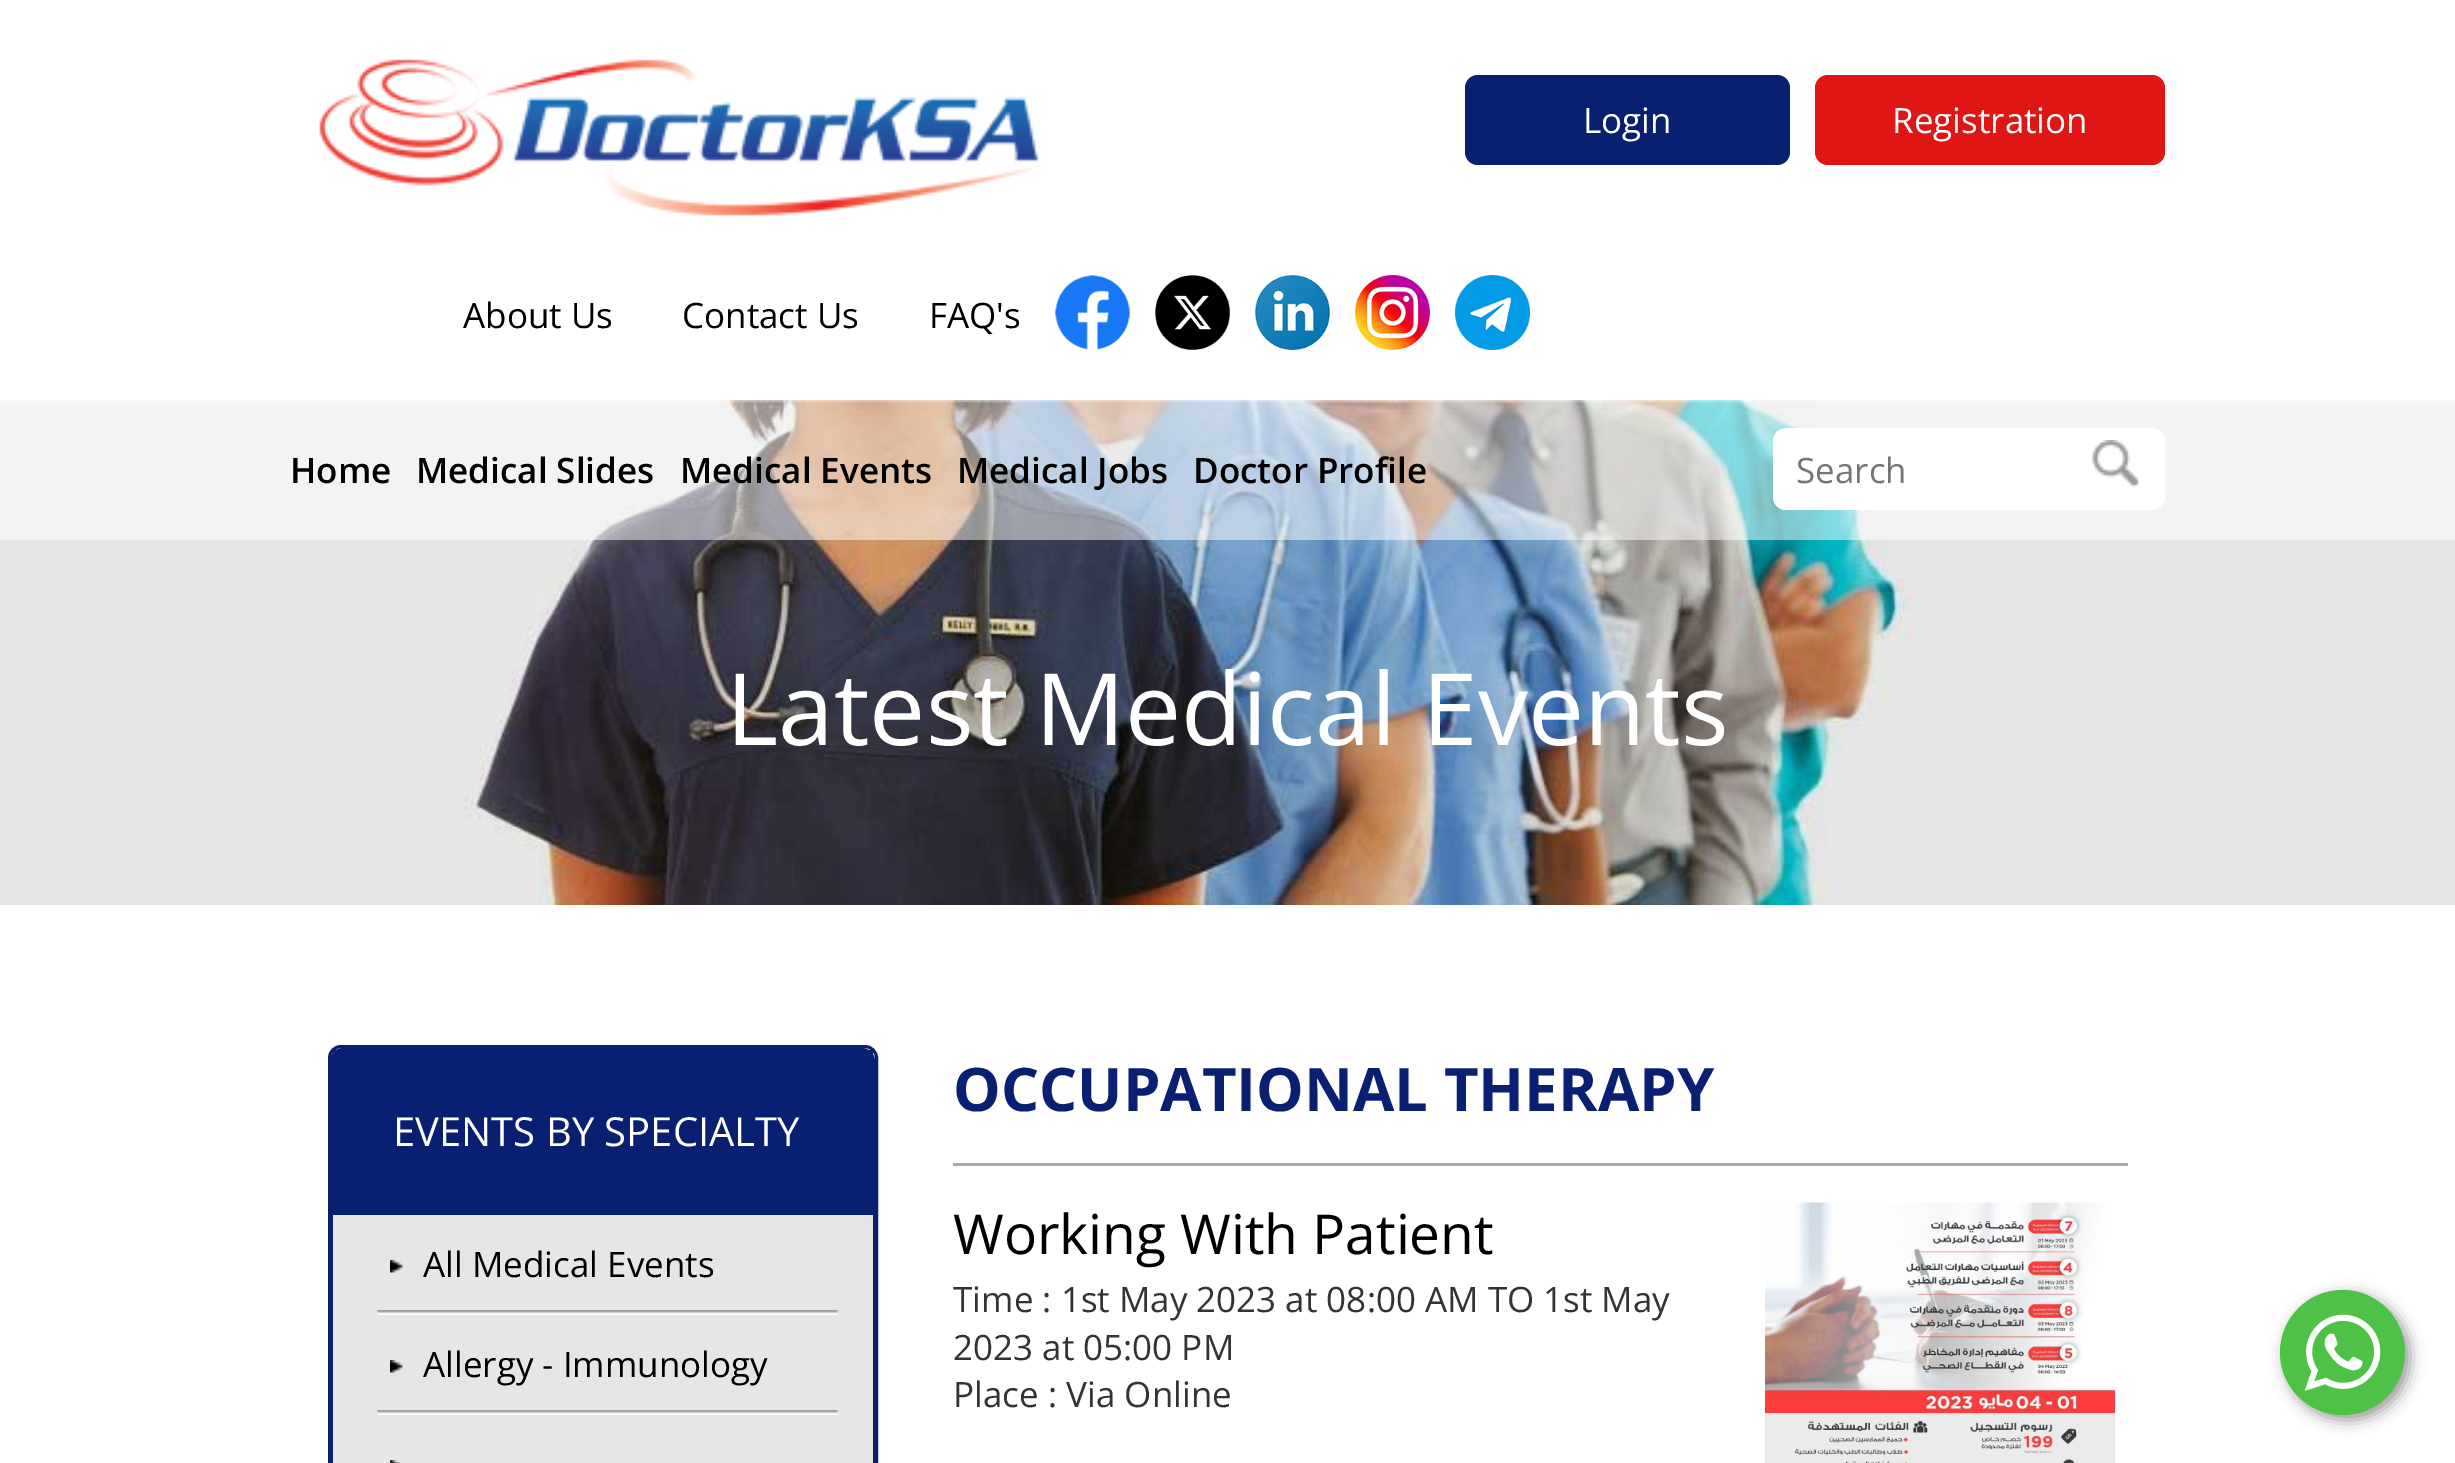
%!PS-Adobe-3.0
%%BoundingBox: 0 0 2455 1463
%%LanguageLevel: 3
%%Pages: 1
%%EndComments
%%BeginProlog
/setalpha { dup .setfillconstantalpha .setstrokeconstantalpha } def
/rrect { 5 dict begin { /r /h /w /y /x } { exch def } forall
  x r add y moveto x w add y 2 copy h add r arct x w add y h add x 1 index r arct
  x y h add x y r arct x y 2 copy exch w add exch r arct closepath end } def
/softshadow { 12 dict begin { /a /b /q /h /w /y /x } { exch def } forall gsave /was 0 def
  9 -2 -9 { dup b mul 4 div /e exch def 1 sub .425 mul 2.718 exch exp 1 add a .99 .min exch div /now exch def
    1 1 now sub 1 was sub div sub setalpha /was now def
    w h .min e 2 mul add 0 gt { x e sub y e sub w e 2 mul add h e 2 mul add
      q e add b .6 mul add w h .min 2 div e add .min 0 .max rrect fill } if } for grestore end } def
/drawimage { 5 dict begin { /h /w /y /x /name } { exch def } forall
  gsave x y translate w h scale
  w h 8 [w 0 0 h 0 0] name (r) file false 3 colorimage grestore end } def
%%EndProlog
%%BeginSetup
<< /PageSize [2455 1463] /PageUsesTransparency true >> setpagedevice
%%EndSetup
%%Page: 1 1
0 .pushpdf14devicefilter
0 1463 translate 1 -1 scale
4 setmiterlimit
1 setgray
0 0 2455 1463 rectfill
(images/1.raw) 319 59 724 157 drawimage
0.035 0.122 0.443 setrgbcolor
1465 75 325 90 13 rrect fill
0.878 0.086 0.082 setrgbcolor
1815 75 350 90 13 rrect fill
(images/2.raw) 1055 275 75 75 drawimage
(images/3.raw) 1155 275 75 75 drawimage
(images/4.raw) 1255 275 75 75 drawimage
(images/5.raw) 1355 275 75 75 drawimage
(images/6.raw) 1455 275 75 75 drawimage
(images/8.raw) 0 400 2455 505 drawimage
0.5 setalpha
1 setgray
0 400 2455 140 rectfill
1 setalpha
1773 428 392 82 13 rrect fill
(images/7.raw) 2091 440 49 48 drawimage
0.035 0.122 0.443 setrgbcolor
3 setlinewidth
329.5 1046.5 547 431 11.5 rrect stroke
331.5 1049.5 542 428 11.5 rrect stroke
333 1050 540 165 rectfill
0.902 setgray
333 1215 540 248 rectfill
(images/9.raw) 377 1310 461 5 drawimage
(images/10.raw) 390 1260 13 13 drawimage
(images/9.raw) 377 1410 461 5 drawimage
(images/10.raw) 390 1360 13 13 drawimage
(images/11.raw) 390 1460 11 3 drawimage
0.667 setgray
953 1163 1175 3 rectfill
(images/12.raw) 1765 1202 350 261 drawimage
0 setgray
2285 1295 125 125 62.5 7.5 0.4 softshadow
0.302 0.761 0.278 setrgbcolor
newpath 2342.5 1352.5 62.5 0 360 arc closepath fill
(images/13.raw) 2304 1314 77 77 drawimage
/OpenSans-Regular [35 0 0 -35 0 0] selectfont
1 setgray
1583 133 moveto (Login) show
1892 133 moveto (Registration) show
0 setgray
463 328 moveto (About Us) show
682 328 moveto (Contact Us) show
929 328 moveto (FAQ's) show
/OpenSans-SemiBold [35 0 0 -35 0 0] selectfont
290 483 moveto (Home) show
416 483 moveto (Medical Slides) show
680 483 moveto (Medical Events) show
957 483 moveto (Medical Jobs) show
1193 483 moveto (Doctor Profile) show
/OpenSans-Regular [35 0 0 -35 0 0] selectfont
0.459 setgray
1796 483 moveto (Search) show
/OpenSans-Regular [100 0 0 -100 0 0] selectfont
1 setgray
726 745 moveto (Latest Medical Events) show
/OpenSans-Regular [40 0 0 -40 0 0] selectfont
393 1146 moveto (EVENTS BY SPECIALTY) show
/OpenSans-Regular [35 0 0 -35 0 0] selectfont
0 setgray
423 1277 moveto (All Medical Events) show
423 1377 moveto (Allergy - Immunology) show
/OpenSans-Bold [60 0 0 -60 0 0] selectfont
0.035 0.122 0.443 setrgbcolor
953 1111 moveto (OCCUPATIONAL THERAPY) show
/OpenSans-Regular [55 0 0 -55 0 0] selectfont
0 setgray
953 1254 moveto (Working With Patient) show
/OpenSans-Regular [35 0 0 -35 0 0] selectfont
0.2 setgray
953 1312 moveto (Time : 1st May 2023 at 08:00 AM TO 1st May) show
953 1360 moveto (2023 at 05:00 PM) show
953 1407 moveto (Place : Via Online) show
.poppdf14devicefilter showpage
%%EOF
